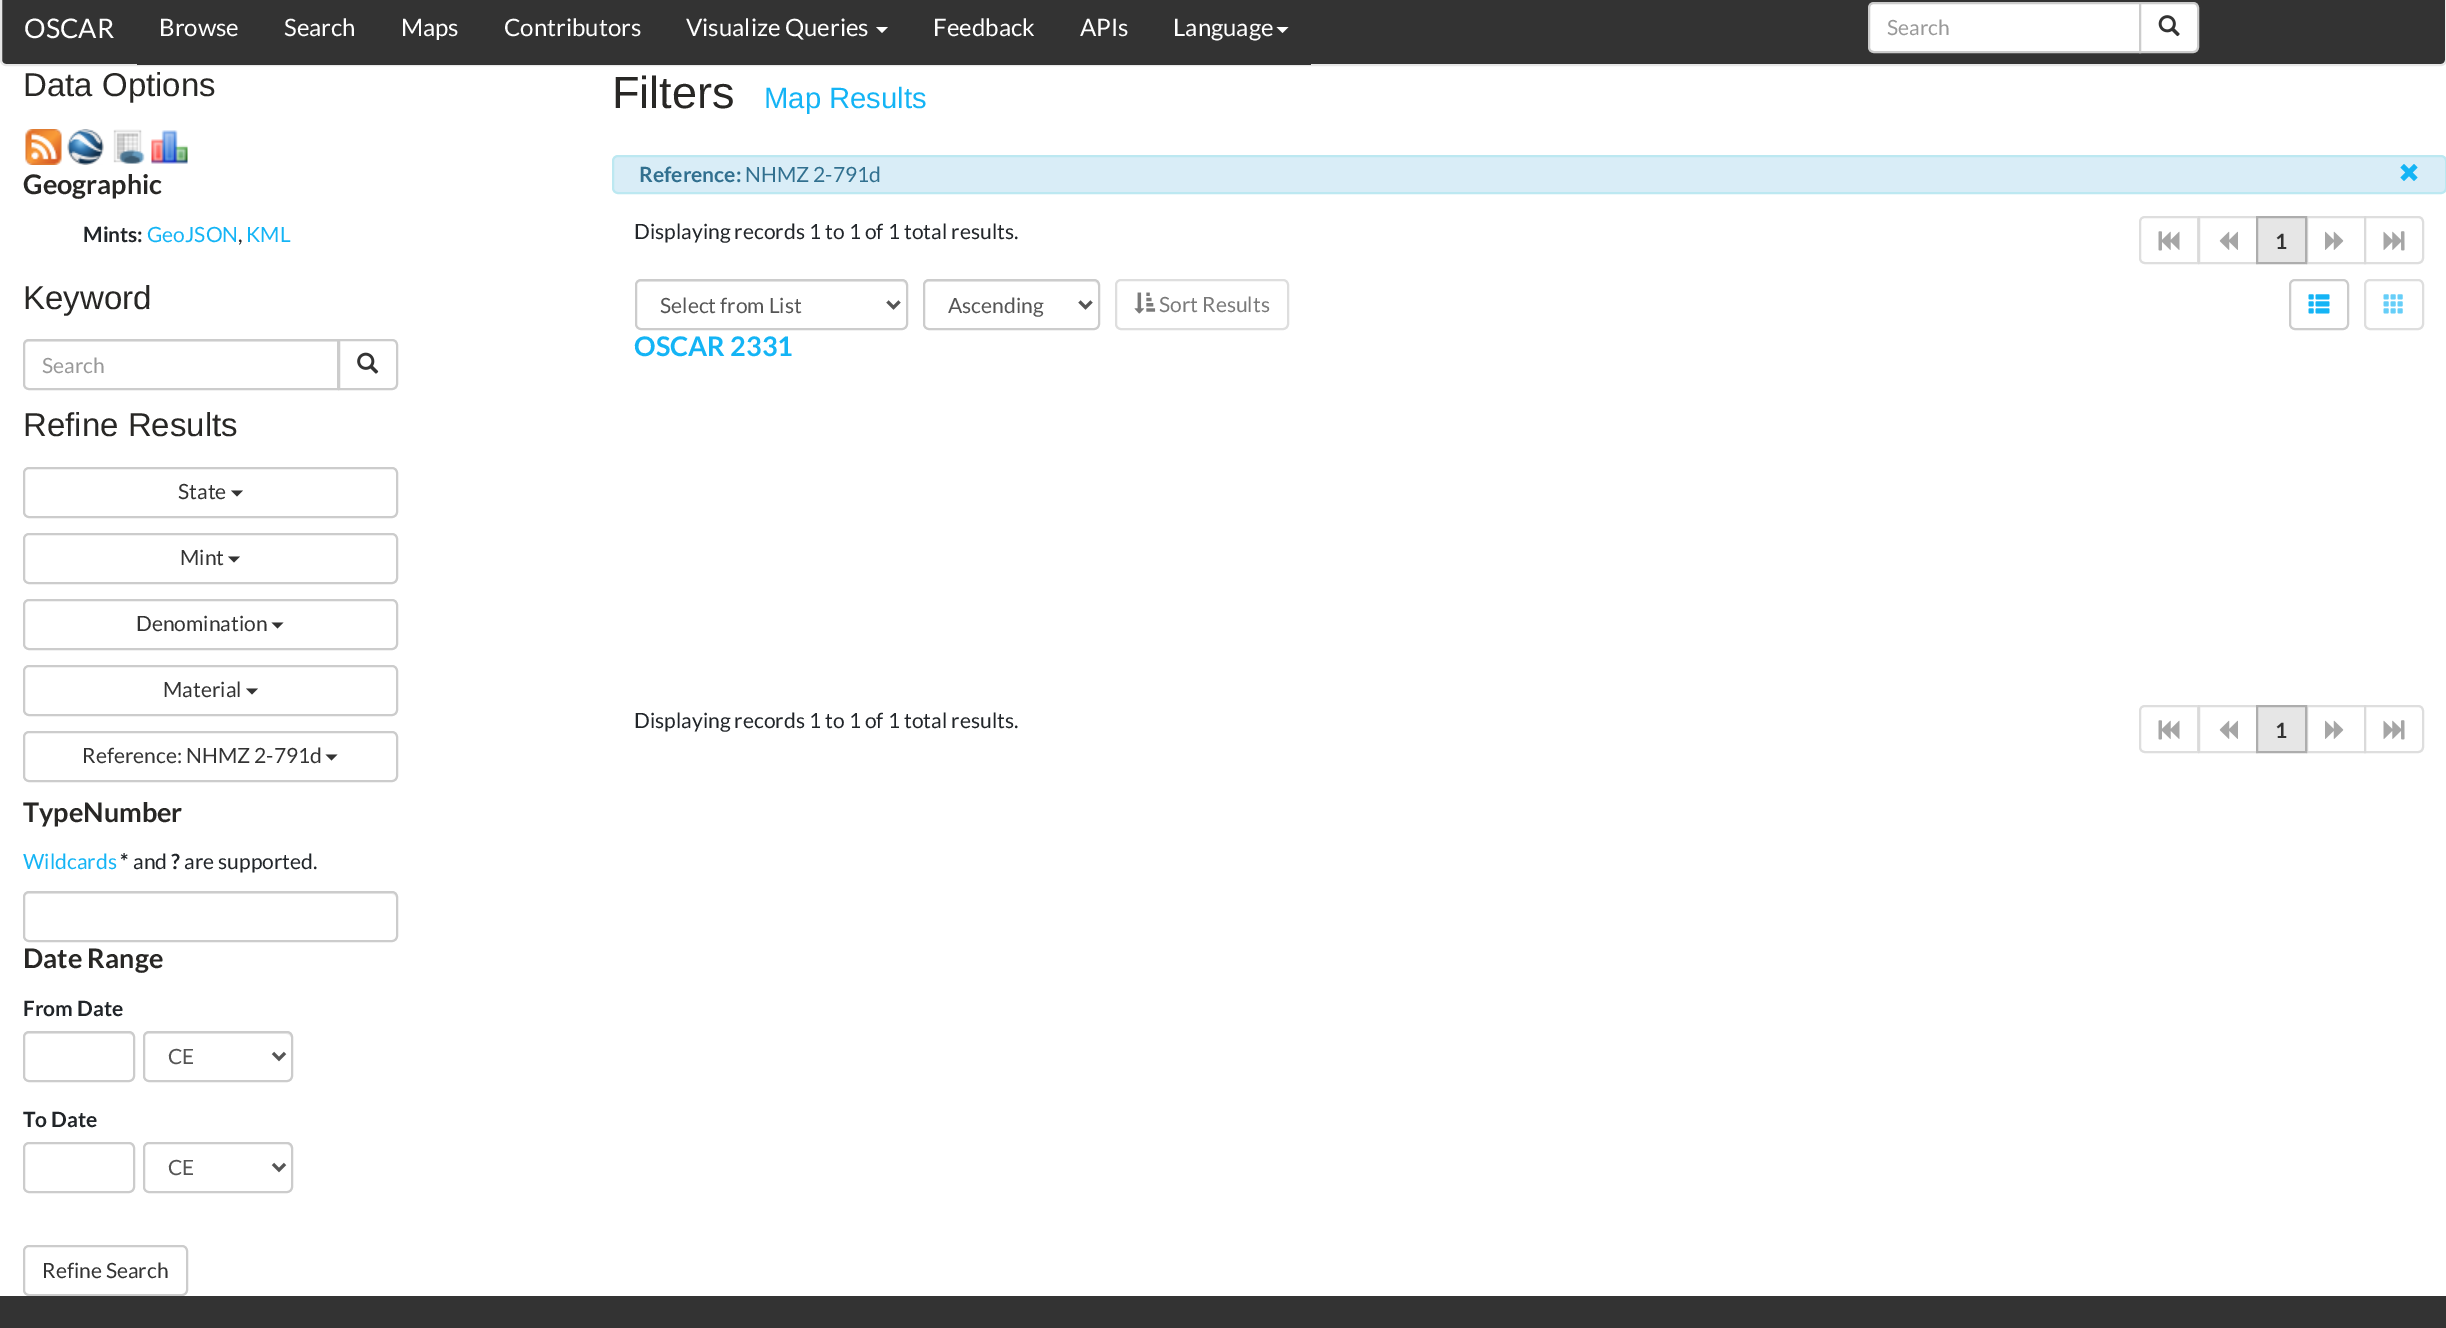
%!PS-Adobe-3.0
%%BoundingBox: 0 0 2446 1328
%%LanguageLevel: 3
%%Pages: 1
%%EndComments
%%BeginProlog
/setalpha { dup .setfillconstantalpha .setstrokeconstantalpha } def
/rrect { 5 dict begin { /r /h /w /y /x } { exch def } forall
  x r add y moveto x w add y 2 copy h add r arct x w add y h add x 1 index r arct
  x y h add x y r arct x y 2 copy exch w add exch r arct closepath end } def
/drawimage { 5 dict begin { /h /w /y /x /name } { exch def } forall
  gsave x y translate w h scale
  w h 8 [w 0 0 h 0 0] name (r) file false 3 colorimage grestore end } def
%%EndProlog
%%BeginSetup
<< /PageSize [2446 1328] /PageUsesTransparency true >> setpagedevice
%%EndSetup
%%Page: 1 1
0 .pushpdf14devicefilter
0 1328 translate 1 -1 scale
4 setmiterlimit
1 setgray
0 0 2446 1328 rectfill
0.2 setgray
1 -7 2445 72 5 rrect gsave fill grestore
0.906 setgray
2 setlinewidth
stroke
0.2 setgray
137 64 1174 1 rectfill
1 setgray
newpath 876 27 moveto 888 27 lineto 882 33 lineto closepath fill
newpath 1276.5 27 moveto 1288.5 27 lineto 1282.5 33 lineto closepath fill
newpath 1874 3 moveto 2140 3 lineto 2140 52 lineto 1874 52 lineto 1871 52 1869 50 1869 47 curveto 1869 8 lineto 1869 5 1871 3 1874 3 curveto closepath gsave fill grestore
0.8 setgray
stroke
1 setgray
newpath 2140 3 moveto 2193 3 lineto 2196 3 2198 5 2198 8 curveto 2198 47 lineto 2198 50 2196 52 2193 52 curveto 2140 52 lineto closepath gsave fill grestore
0.8 setgray
stroke
(images/1.raw) 2158 15 22 22 drawimage
(images/2.raw) 25 129 37 36 drawimage
(images/3.raw) 67 129 37 36 drawimage
(images/4.raw) 113 129 32 35 drawimage
(images/5.raw) 151 130 37 34 drawimage
0.925 setgray
newpath 28 342 moveto 338 342 lineto 338 341 lineto 29 341 lineto 26 341 24 343 24 346 curveto 24 344 26 342 28 342 curveto closepath fill
0.8 setgray
newpath 29 340 moveto 338 340 lineto 338 389 lineto 29 389 lineto 26 389 24 387 24 384 curveto 24 345 lineto 24 342 26 340 29 340 curveto closepath stroke
1 setgray
newpath 339 340 moveto 392 340 lineto 395 340 397 342 397 345 curveto 397 384 lineto 397 387 395 389 392 389 curveto 339 389 lineto closepath gsave fill grestore
0.8 setgray
stroke
(images/6.raw) 357 352 22 22 drawimage
24 468 373 49 5 rrect stroke
0.2 setgray
newpath 231 490.5 moveto 243 490.5 lineto 237 496.5 lineto closepath fill
0.8 setgray
24 534 373 49 5 rrect stroke
0.2 setgray
newpath 228 556.5 moveto 240 556.5 lineto 234 562.5 lineto closepath fill
0.8 setgray
24 600 373 49 5 rrect stroke
0.2 setgray
newpath 271.5 622.5 moveto 283.5 622.5 lineto 277.5 628.5 lineto closepath fill
0.8 setgray
24 666 373 49 5 rrect stroke
0.2 setgray
newpath 246 688.5 moveto 258 688.5 lineto 252 694.5 lineto closepath fill
0.8 setgray
24 732 373 49 5 rrect stroke
0.2 setgray
newpath 325.5 754.5 moveto 337.5 754.5 lineto 331.5 760.5 lineto closepath fill
0.925 setgray
newpath 28 894 moveto 392 894 lineto 394 894 396 896 396 898 curveto 396 895 394 893 391 893 curveto 29 893 lineto 26 893 24 895 24 898 curveto 24 896 26 894 28 894 curveto closepath fill
0.8 setgray
24 892 373 49 5 rrect stroke
0.925 setgray
newpath 28 1034 moveto 129 1034 lineto 131 1034 134 1036 134 1038 curveto 134 1028 117 1032 112 1032 curveto 46 1032 lineto 41 1032 24 1028 24 1038 curveto 24 1036 26 1034 28 1034 curveto closepath fill
0.8 setgray
24 1032 110 49 5 rrect stroke
0.925 setgray
newpath 148 1034 moveto 286 1034 lineto 289 1034 291 1036 291 1038 curveto 291 1037 lineto 291 1034 289 1032 286 1032 curveto 149 1032 lineto 146 1032 144 1034 144 1037 curveto 144 1038 lineto 144 1036 146 1034 148 1034 curveto closepath fill
0.8 setgray
144 1032 148 49 5 rrect stroke
0.333 setgray
3 setlinewidth
newpath 273 1053 moveto 279 1059 lineto 285 1053 lineto stroke
0.925 setgray
newpath 28 1144 moveto 129 1144 lineto 131 1144 134 1147 134 1149 curveto 134 1139 117 1143 112 1143 curveto 46 1143 lineto 41 1143 24 1139 24 1149 curveto 24 1147 26 1144 28 1144 curveto closepath fill
0.8 setgray
2 setlinewidth
24 1143 110 49 5 rrect stroke
0.925 setgray
newpath 148 1144 moveto 286 1144 lineto 289 1144 291 1147 291 1149 curveto 291 1148 lineto 291 1145 289 1143 286 1143 curveto 149 1143 lineto 146 1143 144 1145 144 1148 curveto 144 1149 lineto 144 1147 146 1144 148 1144 curveto closepath fill
0.8 setgray
144 1143 148 49 5 rrect stroke
0.333 setgray
3 setlinewidth
newpath 273 1164 moveto 279 1170 lineto 285 1164 lineto stroke
0.8 setgray
2 setlinewidth
24 1246 163 49 5 rrect stroke
0.851 0.929 0.969 setrgbcolor
613 156 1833 37 5 rrect gsave fill grestore
0.737 0.91 0.945 setrgbcolor
stroke
(images/7.raw) 2400 164 18 17 drawimage
0.871 setgray
newpath 2145 217 moveto 2198 217 lineto 2198 263 lineto 2145 263 lineto 2142 263 2140 261 2140 258 curveto 2140 222 lineto 2140 219 2142 217 2145 217 curveto closepath stroke
(images/8.raw) 2158 231 22 20 drawimage
0.65 setalpha
1 setgray
2198 216 1 48 rectfill
0.8 setgray
2199 217 58 46 rectstroke
1 setalpha
(images/9.raw) 2219 231 19 19 drawimage
0.871 setgray
2307 217 58 46 rectstroke
0.902 setgray
newpath 2257 217 moveto 2306 217 lineto 2306 263 lineto 2257 263 lineto closepath gsave fill grestore
0.678 setgray
stroke
(images/10.raw) 2325 231 19 19 drawimage
0.65 setalpha
1 setgray
newpath 2364 216 moveto 2418 216 lineto 2421.5 216 2424 218.5 2424 222 curveto 2424 258 lineto 2424 261.5 2421.5 264 2418 264 curveto 2364 264 lineto closepath fill
0.8 setgray
newpath 2365 217 moveto 2418 217 lineto 2421 217 2423 219 2423 222 curveto 2423 258 lineto 2423 261 2421 263 2418 263 curveto 2365 263 lineto closepath stroke
1 setalpha
(images/11.raw) 2383 231 22 20 drawimage
0.925 setgray
newpath 640 282 moveto 902 282 lineto 904 282 906 284 906 286 curveto 906 283 904 281 901 281 curveto 641 281 lineto 638 281 636 283 636 286 curveto 636 284 638 282 640 282 curveto closepath fill
0.8 setgray
636 280 271 49 5 rrect stroke
0.333 setgray
3 setlinewidth
newpath 887.5 301.5 moveto 893.5 307.5 lineto 899.5 301.5 lineto stroke
0.925 setgray
newpath 928 282 moveto 1094 282 lineto 1096 282 1098 284 1098 286 curveto 1098 283 1096 281 1093 281 curveto 929 281 lineto 926 281 924 283 924 286 curveto 924 284 926 282 928 282 curveto closepath fill
0.8 setgray
2 setlinewidth
924 280 175 49 5 rrect stroke
0.333 setgray
3 setlinewidth
newpath 1079.5 301.5 moveto 1085.5 307.5 lineto 1091.5 301.5 lineto stroke
0.871 setgray
2 setlinewidth
1116 280 172 49 5 rrect stroke
(images/12.raw) 1134 292 22 22 drawimage
0.8 setgray
2290 280 58 49 5 rrect stroke
(images/13.raw) 2308 294 22 20 drawimage
0.871 setgray
2365 280 58 49 5 rrect stroke
(images/14.raw) 2383 294 20 20 drawimage
newpath 2145 706 moveto 2198 706 lineto 2198 752 lineto 2145 752 lineto 2142 752 2140 750 2140 747 curveto 2140 711 lineto 2140 708 2142 706 2145 706 curveto closepath stroke
(images/8.raw) 2158 720 22 20 drawimage
0.65 setalpha
1 setgray
2198 705 1 48 rectfill
0.8 setgray
2199 706 58 46 rectstroke
1 setalpha
(images/9.raw) 2219 720 19 19 drawimage
0.871 setgray
2307 706 58 46 rectstroke
0.902 setgray
newpath 2257 706 moveto 2306 706 lineto 2306 752 lineto 2257 752 lineto closepath gsave fill grestore
0.678 setgray
stroke
(images/10.raw) 2325 720 19 19 drawimage
0.65 setalpha
1 setgray
newpath 2364 705 moveto 2418 705 lineto 2421.5 705 2424 707.5 2424 711 curveto 2424 747 lineto 2424 750.5 2421.5 753 2418 753 curveto 2364 753 lineto closepath fill
0.8 setgray
newpath 2365 706 moveto 2418 706 lineto 2421 706 2423 708 2423 711 curveto 2423 747 lineto 2423 750 2421 752 2418 752 curveto 2365 752 lineto closepath stroke
1 setalpha
(images/11.raw) 2383 720 22 20 drawimage
0.2 setgray
0 1296 2446 32 rectfill
/Lato-Regular [27 0 0 -27 0 0] selectfont
1 setgray
24 38 moveto (OSCAR) show
/Lato-Regular [24 0 0 -24 0 0] selectfont
159 36 moveto (Browse) show
284 36 moveto (Search) show
401 36 moveto (Maps) show
504 36 moveto (Contributors) show
686 36 moveto (Visualize Queries) show
933 36 moveto (Feedback) show
1080 36 moveto (APIs) show
1173 36 moveto (Language) show
/Lato-Regular [21 0 0 -21 0 0] selectfont
0.6 setgray
1887 35 moveto (Search) show
/LiberationSans-Regular [33 0 0 -33 0 0] selectfont
0.157 0.153 0.145 setrgbcolor
23 96 moveto (Data Options) show
/Lato-Bold [27 0 0 -27 0 0] selectfont
23 194 moveto (Geographic) show
/Lato-Bold [21 0 0 -21 0 0] selectfont
0.129 0.145 0.161 setrgbcolor
83 242 moveto (Mints:) show
/Lato-Regular [21 0 0 -21 0 0] selectfont
0.078 0.706 0.961 setrgbcolor
147 242 moveto (GeoJSON) show
0.129 0.145 0.161 setrgbcolor
238 242 moveto (,) show
0.078 0.706 0.961 setrgbcolor
246 242 moveto (KML) show
/LiberationSans-Regular [33 0 0 -33 0 0] selectfont
0.157 0.153 0.145 setrgbcolor
23 309 moveto (Keyword) show
/Lato-Regular [21 0 0 -21 0 0] selectfont
0.6 setgray
42 373 moveto (Search) show
/LiberationSans-Regular [33 0 0 -33 0 0] selectfont
0.157 0.153 0.145 setrgbcolor
23 436 moveto (Refine Results) show
/Lato-Regular [21 0 0 -21 0 0] selectfont
0.2 setgray
178 499 moveto (State) show
180 565 moveto (Mint) show
136 631 moveto (Denomination) show
163 697 moveto (Material) show
82 763 moveto (Reference: NHMZ 2-791d) show
/Lato-Bold [27 0 0 -27 0 0] selectfont
0.157 0.153 0.145 setrgbcolor
23 822 moveto (TypeNumber) show
/Lato-Regular [21 0 0 -21 0 0] selectfont
0.078 0.706 0.961 setrgbcolor
23 869 moveto (Wildcards) show
/Lato-Bold [21 0 0 -21 0 0] selectfont
0.129 0.145 0.161 setrgbcolor
120 869 moveto (*) show
/Lato-Regular [21 0 0 -21 0 0] selectfont
133 869 moveto (and) show
/Lato-Bold [21 0 0 -21 0 0] selectfont
171 869 moveto (?) show
/Lato-Regular [21 0 0 -21 0 0] selectfont
184 869 moveto (are supported.) show
/Lato-Bold [27 0 0 -27 0 0] selectfont
0.157 0.153 0.145 setrgbcolor
23 968 moveto (Date Range) show
/Lato-Bold [21 0 0 -21 0 0] selectfont
0.129 0.145 0.161 setrgbcolor
23 1016 moveto (From Date) show
/Lato-Regular [21 0 0 -21 0 0] selectfont
0.333 setgray
168 1064 moveto (CE) show
/Lato-Bold [21 0 0 -21 0 0] selectfont
0.129 0.145 0.161 setrgbcolor
23 1127 moveto (To Date) show
/Lato-Regular [21 0 0 -21 0 0] selectfont
0.333 setgray
168 1175 moveto (CE) show
0.2 setgray
42 1278 moveto (Refine Search) show
/LiberationSans-Regular [45 0 0 -45 0 0] selectfont
0.157 0.153 0.145 setrgbcolor
612 108 moveto (Filters) show
/LiberationSans-Regular [29.25 0 0 -29.25 0 0] selectfont
0.078 0.706 0.961 setrgbcolor
764 108 moveto (Map Results) show
/Lato-Bold [21 0 0 -21 0 0] selectfont
0.192 0.439 0.561 setrgbcolor
639 182 moveto (Reference:) show
/Lato-Regular [21 0 0 -21 0 0] selectfont
745 182 moveto (NHMZ 2-791d) show
0.129 0.145 0.161 setrgbcolor
634 239 moveto (Displaying records 1 to 1 of 1 total results.) show
/Lato-Bold [21 0 0 -21 0 0] selectfont
0.2 setgray
2275 249 moveto (1) show
/Lato-Regular [21 0 0 -21 0 0] selectfont
0.333 setgray
660 313 moveto (Select from List) show
948 313 moveto (Ascending) show
0.478 setgray
1159 312 moveto (Sort Results) show
/Lato-Bold [27 0 0 -27 0 0] selectfont
0.078 0.706 0.961 setrgbcolor
634 356 moveto (OSCAR 2331) show
/Lato-Regular [21 0 0 -21 0 0] selectfont
0.129 0.145 0.161 setrgbcolor
634 728 moveto (Displaying records 1 to 1 of 1 total results.) show
/Lato-Bold [21 0 0 -21 0 0] selectfont
0.2 setgray
2275 738 moveto (1) show
.poppdf14devicefilter showpage
%%EOF
